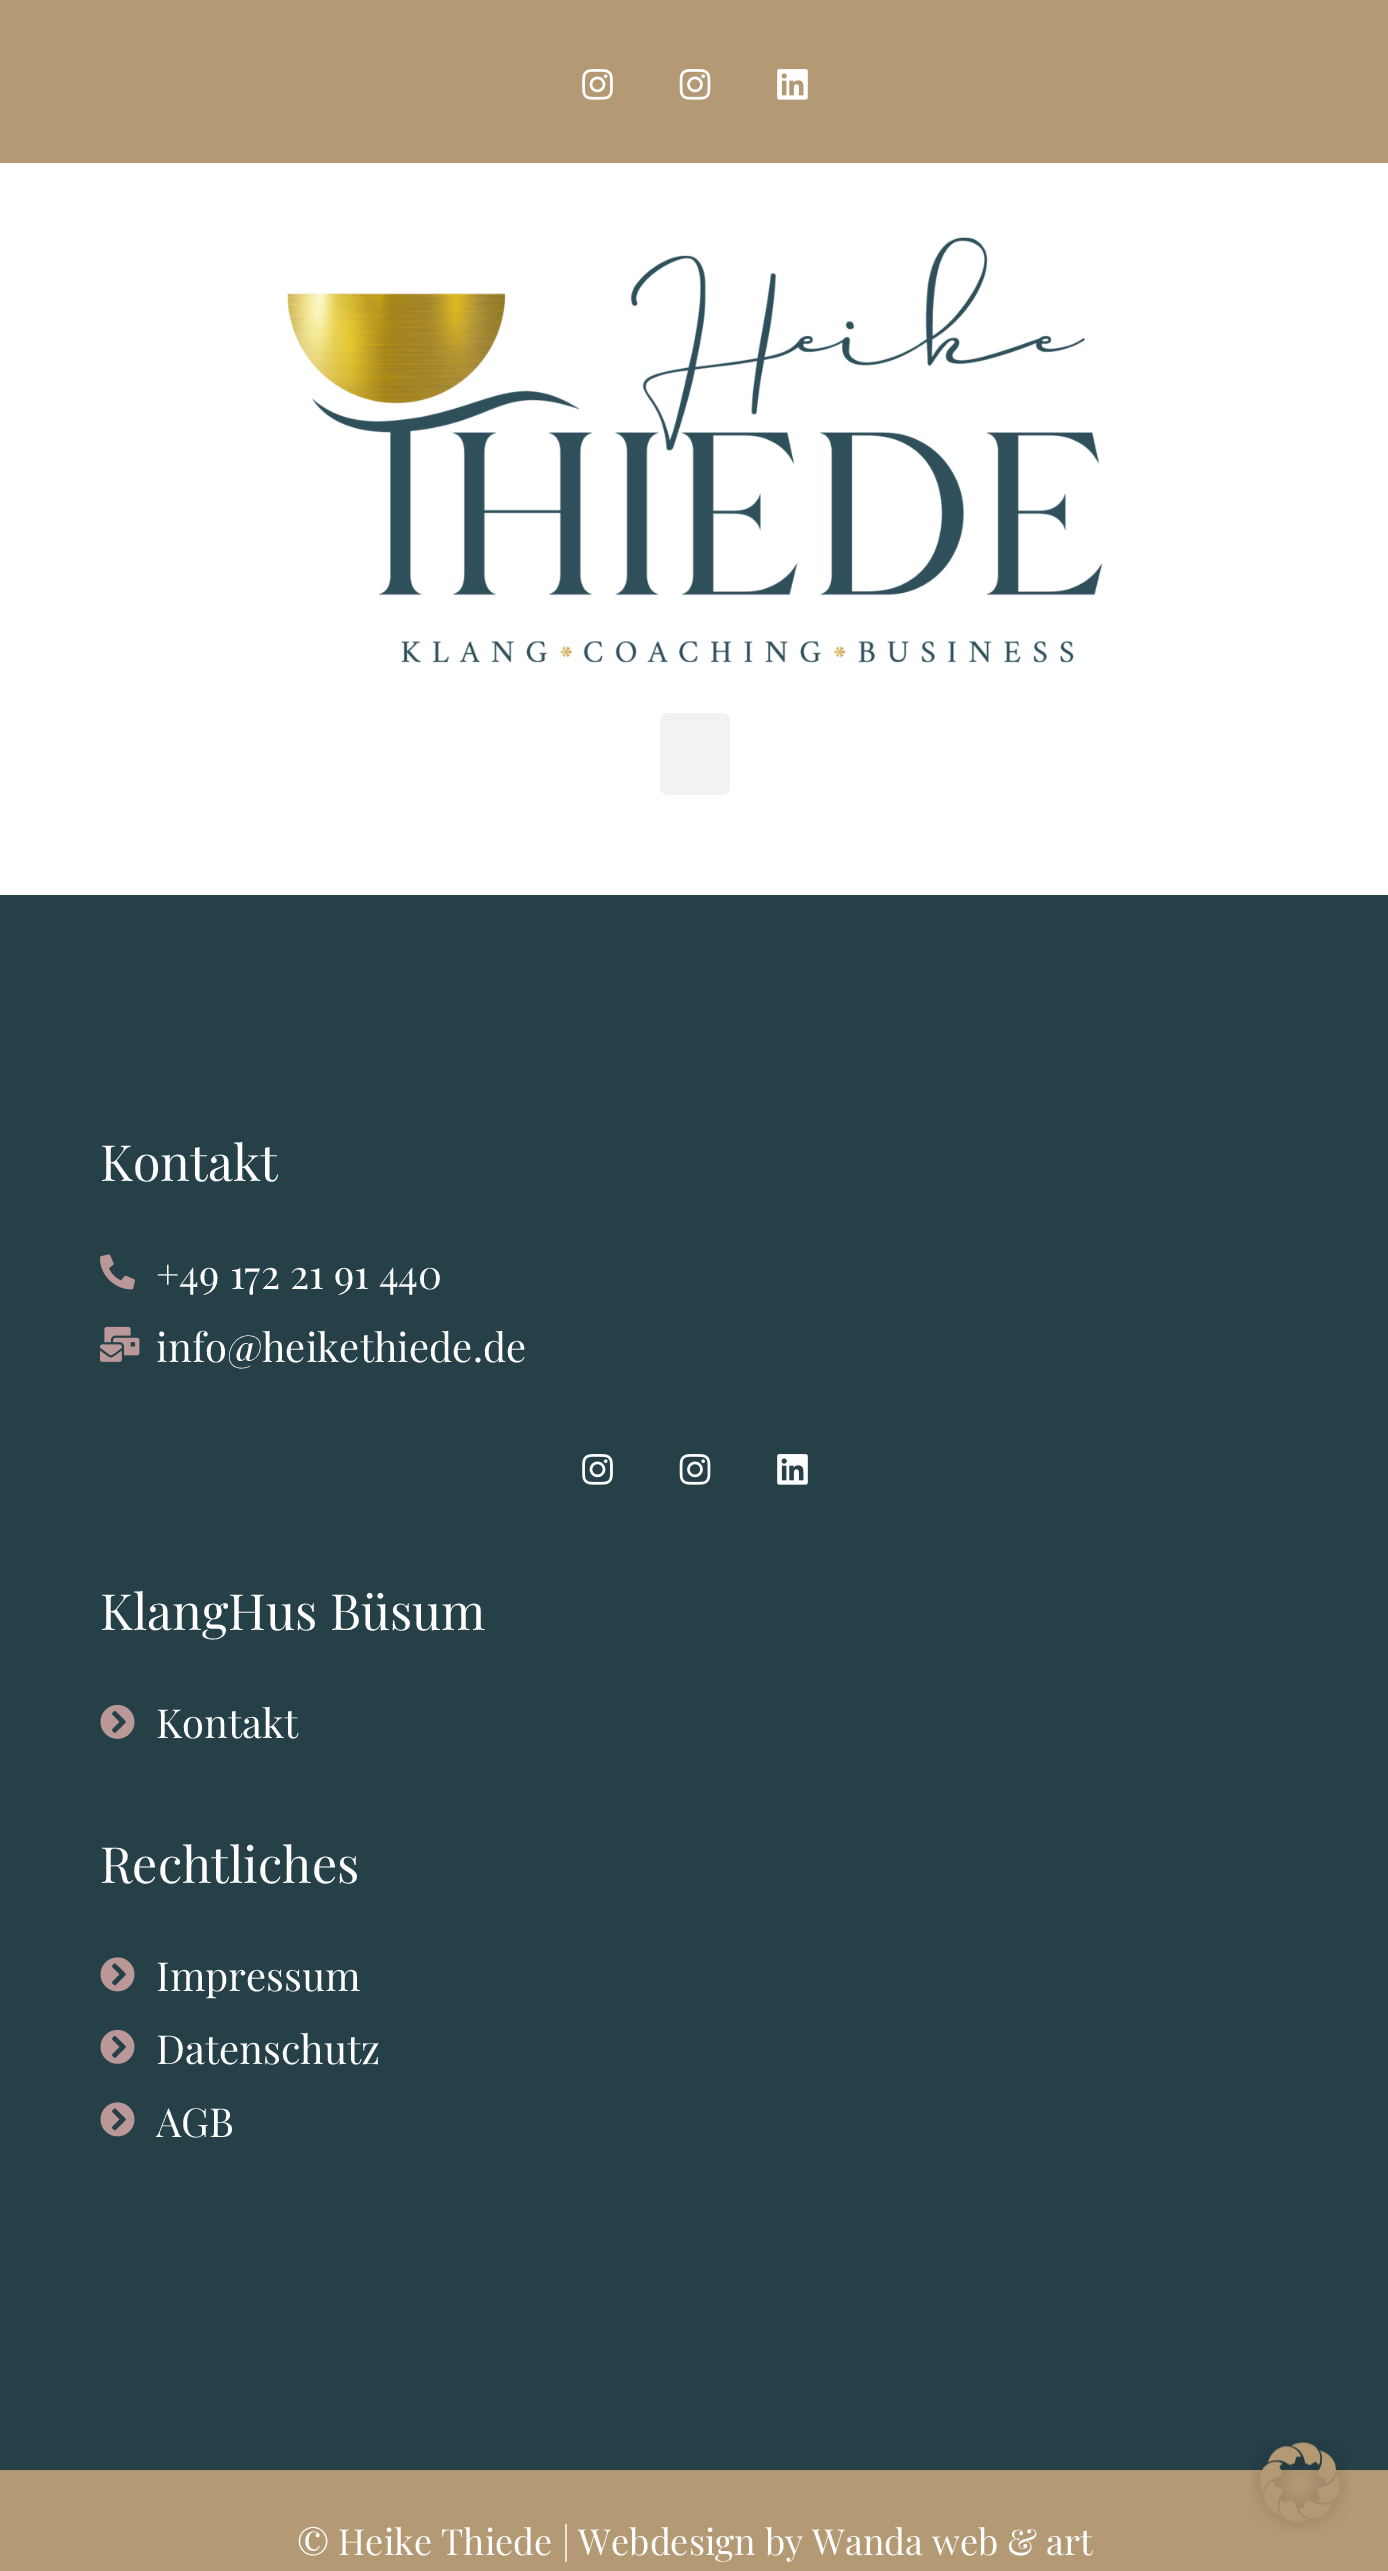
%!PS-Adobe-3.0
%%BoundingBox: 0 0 1388 2571
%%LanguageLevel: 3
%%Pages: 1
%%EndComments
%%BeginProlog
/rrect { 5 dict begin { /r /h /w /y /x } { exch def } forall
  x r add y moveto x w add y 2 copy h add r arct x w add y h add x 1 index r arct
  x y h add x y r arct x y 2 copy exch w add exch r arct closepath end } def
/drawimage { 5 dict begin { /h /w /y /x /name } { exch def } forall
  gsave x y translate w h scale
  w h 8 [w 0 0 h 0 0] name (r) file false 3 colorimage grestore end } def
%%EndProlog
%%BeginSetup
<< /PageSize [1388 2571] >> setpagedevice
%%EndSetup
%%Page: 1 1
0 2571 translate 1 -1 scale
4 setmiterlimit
1 setgray
0 0 1388 2571 rectfill
0.702 0.604 0.459 setrgbcolor
0 0 1388 163 rectfill
(images/1.raw) 582 69 31 31 drawimage
(images/2.raw) 679 69 32 31 drawimage
(images/3.raw) 777 69 31 31 drawimage
(images/4.raw) 287 237 816 426 drawimage
0.949 setgray
660 713 70 82 8 rrect fill
0.149 0.251 0.282 setrgbcolor
0 895 1388 1575 rectfill
(images/5.raw) 100 1254 35 36 drawimage
(images/6.raw) 100 1326 40 36 drawimage
(images/7.raw) 582 1454 31 31 drawimage
(images/8.raw) 679 1454 32 31 drawimage
(images/9.raw) 777 1454 31 31 drawimage
(images/10.raw) 100 1704 35 35 drawimage
(images/11.raw) 100 1957 35 35 drawimage
(images/10.raw) 100 2029 35 35 drawimage
(images/11.raw) 100 2102 35 35 drawimage
0.702 0.604 0.459 setrgbcolor
0 2470 1388 101 rectfill
(images/12.raw) 1250 2440 100 92 drawimage
/PlayfairDisplay-Regular [50 0 0 -50 0 0] selectfont
1 setgray
100 1181 moveto (Kontakt) show
/PlayfairDisplay-Regular [40 0 0 -40 0 0] selectfont
156 1289 moveto (+49 172 21 91 440) show
156 1362 moveto (info@heikethiede.de) show
/PlayfairDisplay-Regular [50 0 0 -50 0 0] selectfont
100 1630 moveto (KlangHus Büsum) show
/PlayfairDisplay-Regular [40 0 0 -40 0 0] selectfont
156 1738 moveto (Kontakt) show
/PlayfairDisplay-Regular [50 0 0 -50 0 0] selectfont
100 1883 moveto (Rechtliches) show
/PlayfairDisplay-Regular [40 0 0 -40 0 0] selectfont
156 1991 moveto (Impressum) show
156 2064 moveto (Datenschutz) show
156 2137 moveto (AGB) show
/PlayfairDisplay-Regular [36 0 0 -36 0 0] selectfont
297 2555 moveto (© Heike Thiede | Webdesign by Wanda web & art) show
showpage
%%EOF
